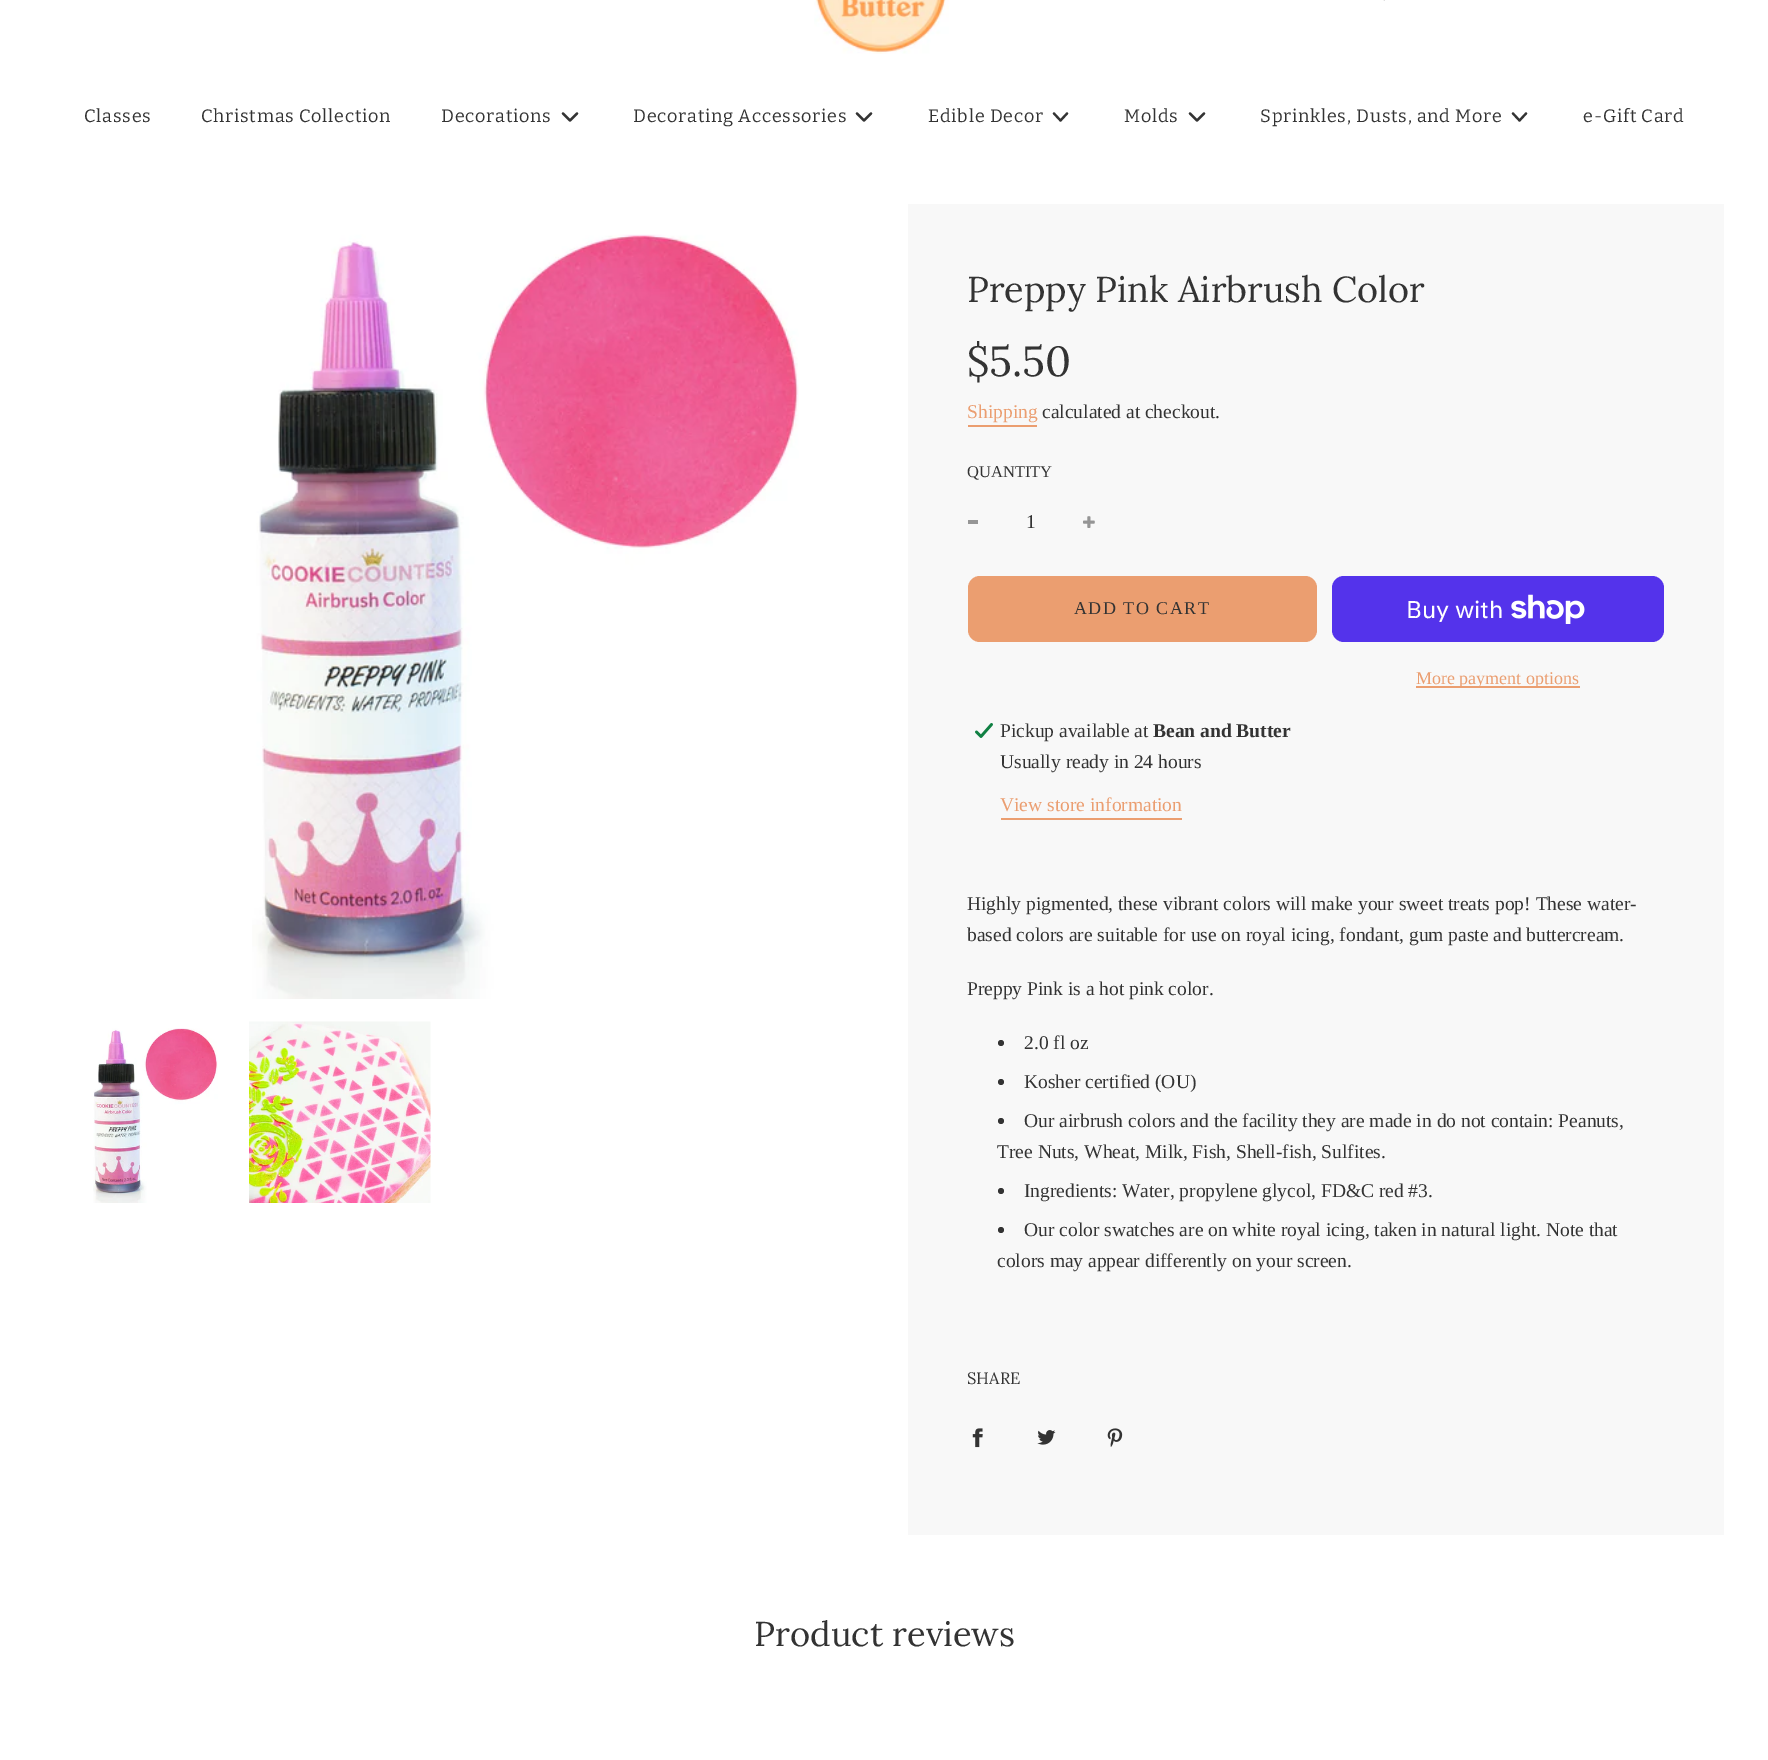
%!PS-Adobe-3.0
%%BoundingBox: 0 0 1768 1760
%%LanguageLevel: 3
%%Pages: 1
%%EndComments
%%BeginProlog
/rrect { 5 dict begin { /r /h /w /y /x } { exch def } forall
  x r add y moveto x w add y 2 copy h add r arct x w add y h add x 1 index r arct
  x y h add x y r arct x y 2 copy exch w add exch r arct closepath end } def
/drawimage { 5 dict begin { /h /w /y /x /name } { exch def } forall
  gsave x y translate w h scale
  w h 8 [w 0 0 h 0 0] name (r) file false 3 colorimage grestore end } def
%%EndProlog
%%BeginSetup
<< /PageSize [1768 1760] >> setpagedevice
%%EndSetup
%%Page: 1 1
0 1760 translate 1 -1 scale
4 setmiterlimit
1 setgray
0 0 1768 1760 rectfill
(images/1.raw) 814 0 135 54 drawimage
(images/2.raw) 1383 0 2 1 drawimage
0.2 setgray
2.2 setlinewidth
1 setlinecap
1 setlinejoin
newpath 563 113.5 moveto 570 120.5 lineto 577 113.5 lineto stroke
newpath 857 113.5 moveto 864 120.5 lineto 871 113.5 lineto stroke
newpath 1054 113.5 moveto 1060.5 120.5 lineto 1067 113.5 lineto stroke
newpath 1190 113.5 moveto 1197 120.5 lineto 1204 113.5 lineto stroke
newpath 1513 113.5 moveto 1519.5 120.5 lineto 1526 113.5 lineto stroke
(images/3.raw) 252 234 547 765 drawimage
(images/4.raw) 93 1028 125 175 drawimage
(images/5.raw) 249 1021 182 182 drawimage
0.973 setgray
908 204 816 1331 rectfill
0.922 0.62 0.439 setrgbcolor
968 425 69 2 rectfill
0.588 setgray
968 520 10 4 rectfill
(images/6.raw) 1083 516 12 12 drawimage
0.922 0.62 0.439 setrgbcolor
968 576 349 66 12 rrect fill
0.329 0.2 0.922 setrgbcolor
1332 576 332 66 12 rrect fill
(images/7.raw) 1511 594 74 30 drawimage
0.922 0.62 0.439 setrgbcolor
1416 686 164 2 rectfill
(images/8.raw) 975 723 18 15 drawimage
1001 818 181 2 rectfill
0.2 setgray
newpath 1001 1043 3 0 360 arc closepath fill
newpath 1001 1082 3 0 360 arc closepath fill
newpath 1001 1121 3 0 360 arc closepath fill
newpath 1001 1191 3 0 360 arc closepath fill
newpath 1001 1230 3 0 360 arc closepath fill
(images/9.raw) 972 1428 11 20 drawimage
(images/10.raw) 1037 1430 19 15 drawimage
(images/11.raw) 1107 1428 16 19 drawimage
/Bitter-Regular [18 0 0 -18 0 0] selectfont
84 122 moveto 0.75 0 (Classes) ashow
201 122 moveto 0.75 0 (Christmas Collection) ashow
441 122 moveto 0.75 0 (Decorations) ashow
633 122 moveto 0.75 0 (Decorating Accessories) ashow
928 122 moveto 0.75 0 (Edible Decor) ashow
1124 122 moveto 0.75 0 (Molds) ashow
1260 122 moveto 0.75 0 (Sprinkles, Dusts, and More) ashow
1583 122 moveto 0.75 0 (e-Gift Card) ashow
/Lora-Regular [36 0 0 -36 0 0] selectfont
967 302 moveto (Preppy Pink Airbrush Color) show
/Lora-Regular [42 0 0 -42 0 0] selectfont
967 376 moveto ($5.50) show
/LiberationSerif-Regular [19.5 0 0 -19.5 0 0] selectfont
0.922 0.62 0.439 setrgbcolor
967 418 moveto (Shipping) show
0.2 setgray
1042 418 moveto (calculated at checkout.) show
/LiberationSerif-Regular [16.5 0 0 -16.5 0 0] selectfont
967 477 moveto (QUANTITY) show
/LiberationSerif-Regular [19.5 0 0 -19.5 0 0] selectfont
1026 528 moveto (1) show
/LiberationSerif-Regular [18 0 0 -18 0 0] selectfont
1074 614 moveto 1.5 0 (ADD TO CART) ashow
/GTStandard-Regular [24 0 0 -24 0 0] selectfont
1 setgray
1406 618 moveto (Buy with) show
/LiberationSerif-Regular [18 0 0 -18 0 0] selectfont
0.922 0.62 0.439 setrgbcolor
1416 684 moveto (More payment options) show
/LiberationSerif-Regular [19.5 0 0 -19.5 0 0] selectfont
0.2 setgray
1000 737 moveto (Pickup available at) show
/LiberationSerif-Bold [19.5 0 0 -19.5 0 0] selectfont
1153 737 moveto (Bean and Butter) show
/LiberationSerif-Regular [19.5 0 0 -19.5 0 0] selectfont
1000 768 moveto (Usually ready in 24 hours) show
0.922 0.62 0.439 setrgbcolor
1000 811 moveto (View store information) show
0.2 setgray
967 910 moveto (Highly pigmented, these vibrant colors will make your sweet treats pop! These water-) show
967 941 moveto (based colors are suitable for use on royal icing, fondant, gum paste and buttercream.) show
967 995 moveto (Preppy Pink is a hot pink color.) show
1024 1049 moveto (2.0 fl oz) show
1024 1088 moveto (Kosher certified \(OU\)) show
1024 1127 moveto (Our airbrush colors and the facility they are made in do not contain: Peanuts,) show
997 1158 moveto (Tree Nuts, Wheat, Milk, Fish, Shell-fish, Sulfites.) show
1024 1197 moveto (Ingredients: Water, propylene glycol, FD&C red #3.) show
1024 1236 moveto (Our color swatches are on white royal icing, taken in natural light. Note that) show
997 1267 moveto (colors may appear differently on your screen.) show
/Lora-Regular [16.5 0 0 -16.5 0 0] selectfont
967 1384 moveto (SHARE) show
/Lora-Regular [34.5 0 0 -34.5 0 0] selectfont
754 1646 moveto (Product reviews) show
showpage
%%EOF
